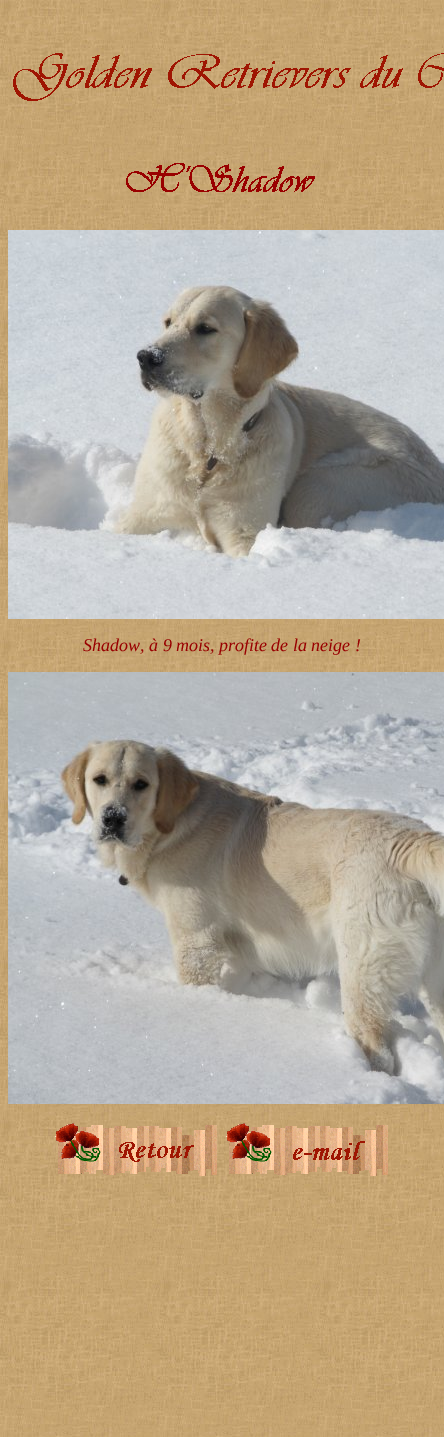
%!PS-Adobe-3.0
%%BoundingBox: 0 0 444 1437
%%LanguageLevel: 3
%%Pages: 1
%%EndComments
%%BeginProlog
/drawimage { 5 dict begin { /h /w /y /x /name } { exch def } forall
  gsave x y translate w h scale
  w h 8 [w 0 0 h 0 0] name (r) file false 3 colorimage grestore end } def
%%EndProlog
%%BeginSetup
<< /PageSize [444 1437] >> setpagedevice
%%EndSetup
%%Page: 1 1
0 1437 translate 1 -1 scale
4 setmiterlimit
1 setgray
0 0 444 1437 rectfill
(images/1.raw) 0 0 444 1437 drawimage
(images/2.raw) 13 53 431 48 drawimage
(images/3.raw) 126 163 189 29 drawimage
(images/4.raw) 8 230 436 389 drawimage
(images/5.raw) 8 672 436 432 drawimage
(images/6.raw) 55 1123 162 53 drawimage
(images/7.raw) 226 1123 162 53 drawimage
/LiberationSerif-Italic [18 0 0 -18 0 0] selectfont
0.6 0 0 setrgbcolor
83 651 moveto (Shadow, à 9 mois, profite de la neige !) show
showpage
%%EOF
